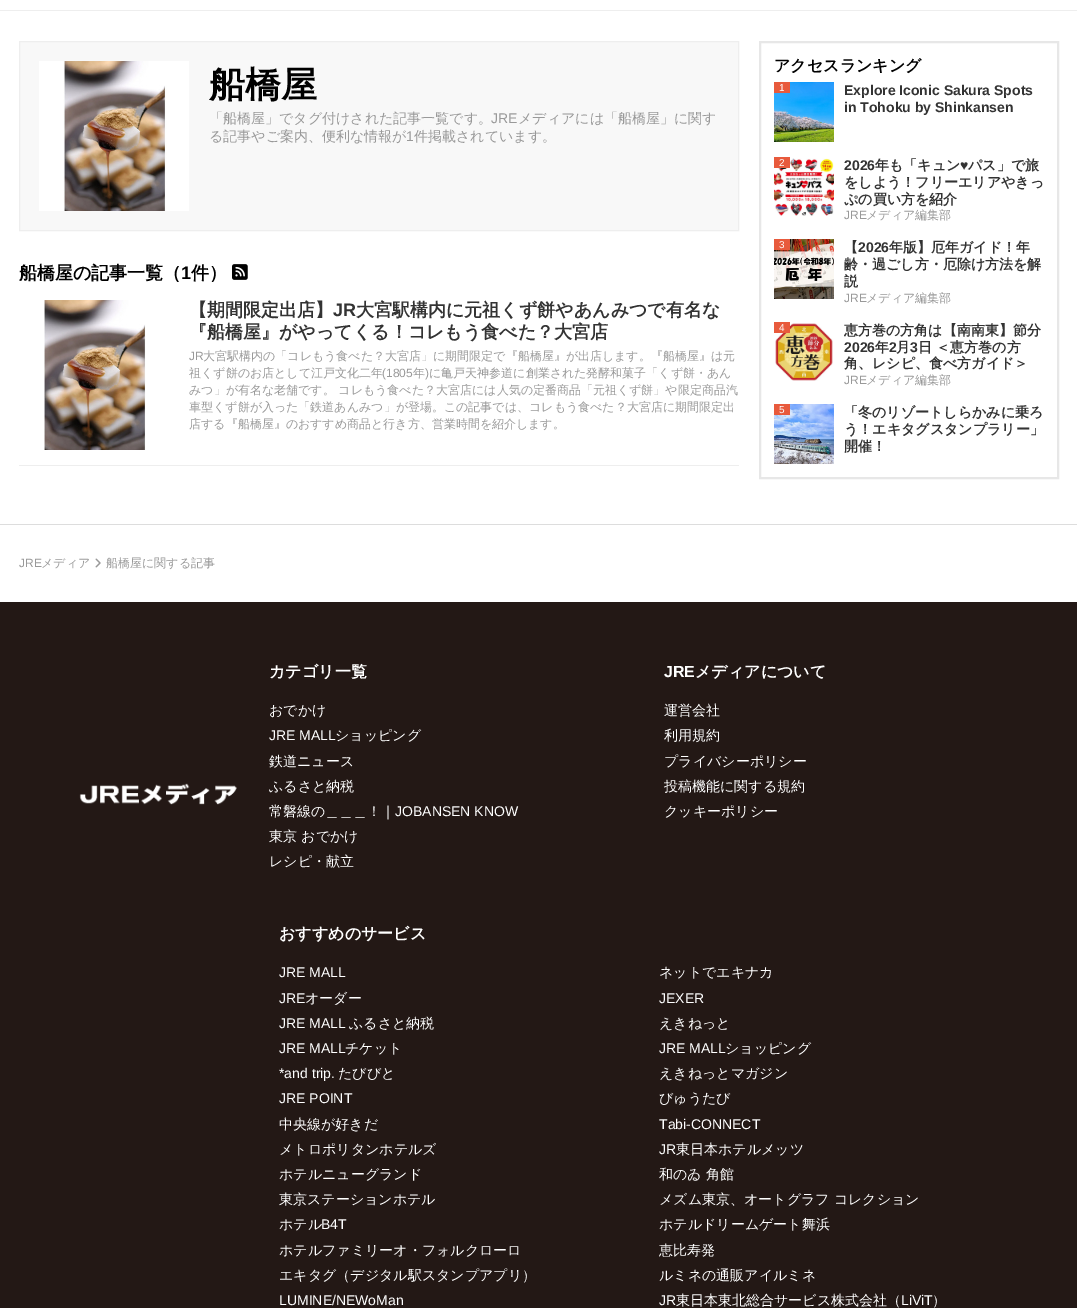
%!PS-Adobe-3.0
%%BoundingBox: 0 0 1077 1308
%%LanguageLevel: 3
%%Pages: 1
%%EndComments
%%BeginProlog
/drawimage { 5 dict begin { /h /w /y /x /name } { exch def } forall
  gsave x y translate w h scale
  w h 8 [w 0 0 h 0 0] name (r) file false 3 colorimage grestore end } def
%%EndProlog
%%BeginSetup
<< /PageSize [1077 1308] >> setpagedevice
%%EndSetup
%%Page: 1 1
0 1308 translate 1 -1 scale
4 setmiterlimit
1 setgray
0 0 1077 1308 rectfill
0.933 setgray
0 10 1077 1 rectfill
0.973 setgray
newpath 19.5 41.5 moveto 738.5 41.5 lineto 738.5 230.5 lineto 19.5 230.5 lineto closepath gsave fill grestore
0.933 setgray
stroke
(images/1.raw) 39 61 150 150 drawimage
(images/2.raw) 232 264 16 16 drawimage
19 465 720 1 rectfill
(images/3.raw) 44 300 102 150 drawimage
0.906 setgray
2 setlinewidth
760 42 298 436 rectstroke
(images/4.raw) 774 82 60 60 drawimage
0.91 0.353 0.235 setrgbcolor
774 82 16 11 rectfill
(images/5.raw) 774 158 60 58 drawimage
774 157 16 11 rectfill
(images/6.raw) 774 239 60 60 drawimage
774 239 16 11 rectfill
(images/7.raw) 775 323 58 58 drawimage
774 322 16 11 rectfill
(images/8.raw) 774 404 60 60 drawimage
774 404 16 11 rectfill
0.867 setgray
0 524 1077 1 rectfill
(images/9.raw) 95 558 6 10 drawimage
0.137 0.094 0.082 setrgbcolor
0 602 1077 706 rectfill
(images/10.raw) 79 783 158 22 drawimage
/WenQuanYiZenHei-Bold [36 0 0 -36 0 0] selectfont
0 setgray
209 97 moveto (船橋屋) show
/WenQuanYiZenHei-Medium [14 0 0 -14 0 0] selectfont
0.6 setgray
209 123 moveto (「船橋屋」でタグ付けされた記事一覧です。) show
/LiberationSans-Regular [14 0 0 -14 0 0] selectfont
491 123 moveto (JRE) show
/WenQuanYiZenHei-Medium [14 0 0 -14 0 0] selectfont
518 123 moveto (メディアには「船橋屋」に関す) show
209 141 moveto (る記事やご案内、便利な情報が) show
/LiberationSans-Regular [14 0 0 -14 0 0] selectfont
406 141 moveto (1) show
/WenQuanYiZenHei-Medium [14 0 0 -14 0 0] selectfont
414 141 moveto (件掲載されています。) show
/WenQuanYiZenHei-Bold [18 0 0 -18 0 0] selectfont
0 setgray
19 279 moveto (船橋屋の記事一覧（) show
/LiberationSans-Bold [18 0 0 -18 0 0] selectfont
181 279 moveto (1) show
/WenQuanYiZenHei-Bold [18 0 0 -18 0 0] selectfont
191 279 moveto (件）) show
0.2 setgray
189 316 moveto (【期間限定出店】) show
/LiberationSans-Bold [18 0 0 -18 0 0] selectfont
333 316 moveto (JR) show
/WenQuanYiZenHei-Bold [18 0 0 -18 0 0] selectfont
356 316 moveto (大宮駅構内に元祖くず餅やあんみつで有名な) show
189 338 moveto (『船橋屋』がやってくる！コレもう食べた？大宮店) show
/LiberationSans-Regular [12 0 0 -12 0 0] selectfont
0.6 setgray
189 360 moveto (JR) show
/WenQuanYiZenHei-Medium [12 0 0 -12 0 0] selectfont
203 360 moveto (大宮駅構内の「コレもう食べた？大宮店」に期間限定で『船橋屋』が出店します。『船橋屋』は元) show
189 377 moveto (祖くず餅のお店として江戸文化二年) show
/LiberationSans-Regular [12 0 0 -12 0 0] selectfont
382 377 moveto (\(1805) show
/WenQuanYiZenHei-Medium [12 0 0 -12 0 0] selectfont
413 377 moveto (年) show
/LiberationSans-Regular [12 0 0 -12 0 0] selectfont
425 377 moveto (\)) show
/WenQuanYiZenHei-Medium [12 0 0 -12 0 0] selectfont
429 377 moveto (に亀戸天神参道に創業された発酵和菓子「くず餅・あん) show
189 394 moveto (みつ」が有名な老舗です。 コレもう食べた？大宮店には人気の定番商品「元祖くず餅」や限定商品汽) show
189 411 moveto (車型くず餅が入った「鉄道あんみつ」が登場。この記事では、コレもう食べた？大宮店に期間限定出) show
189 428 moveto (店する『船橋屋』のおすすめ商品と行き方、営業時間を紹介します。) show
/WenQuanYiZenHei-Bold [16 0 0 -16 0 0] selectfont
0 setgray
774 71 moveto (アクセスランキング) show
/LiberationSans-Regular [10 0 0 -10 0 0] selectfont
1 setgray
779 91 moveto (1) show
/LiberationSans-Bold [14 0 0 -14 0 0] selectfont
0.2 setgray
844 95 moveto (Explore Iconic Sakura Spots) show
844 112 moveto (in Tohoku by Shinkansen) show
/LiberationSans-Regular [10 0 0 -10 0 0] selectfont
1 setgray
779 166 moveto (2) show
/LiberationSans-Bold [14 0 0 -14 0 0] selectfont
0.2 setgray
844 170 moveto (2026) show
/WenQuanYiZenHei-Bold [14 0 0 -14 0 0] selectfont
875 170 moveto (年も「キュン) show
/LiberationSans-Bold [14 0 0 -14 0 0] selectfont
960 170 moveto (♥) show
/WenQuanYiZenHei-Bold [14 0 0 -14 0 0] selectfont
968 170 moveto (パス」で旅) show
844 187 moveto (をしよう！フリーエリアやきっ) show
844 204 moveto (ぷの買い方を紹介) show
/LiberationSans-Regular [12 0 0 -12 0 0] selectfont
0.6 setgray
844 219 moveto (JRE) show
/WenQuanYiZenHei-Medium [12 0 0 -12 0 0] selectfont
866 219 moveto (メディア編集部) show
/LiberationSans-Regular [10 0 0 -10 0 0] selectfont
1 setgray
779 248 moveto (3) show
/WenQuanYiZenHei-Bold [14 0 0 -14 0 0] selectfont
0.2 setgray
844 252 moveto (【) show
/LiberationSans-Bold [14 0 0 -14 0 0] selectfont
858 252 moveto (2026) show
/WenQuanYiZenHei-Bold [14 0 0 -14 0 0] selectfont
889 252 moveto (年版】厄年ガイド！年) show
844 269 moveto (齢・過ごし方・厄除け方法を解) show
gsave
844 239 200 68 rectclip
844 286 moveto (説) show
grestore
/LiberationSans-Regular [12 0 0 -12 0 0] selectfont
0.6 setgray
844 302 moveto (JRE) show
/WenQuanYiZenHei-Medium [12 0 0 -12 0 0] selectfont
866 302 moveto (メディア編集部) show
/LiberationSans-Regular [10 0 0 -10 0 0] selectfont
1 setgray
779 331 moveto (4) show
gsave
844 322 200 67 rectclip
/WenQuanYiZenHei-Bold [14 0 0 -14 0 0] selectfont
0.2 setgray
844 335 moveto (恵方巻の方角は【南南東】節分) show
grestore
/LiberationSans-Bold [14 0 0 -14 0 0] selectfont
0.2 setgray
844 352 moveto (2026) show
/WenQuanYiZenHei-Bold [14 0 0 -14 0 0] selectfont
875 352 moveto (年) show
/LiberationSans-Bold [14 0 0 -14 0 0] selectfont
889 352 moveto (2) show
/WenQuanYiZenHei-Bold [14 0 0 -14 0 0] selectfont
896 352 moveto (月) show
/LiberationSans-Bold [14 0 0 -14 0 0] selectfont
910 352 moveto (3) show
/WenQuanYiZenHei-Bold [14 0 0 -14 0 0] selectfont
918 352 moveto (日 ＜恵方巻の方) show
844 368 moveto (角、レシピ、食べ方ガイド＞) show
/LiberationSans-Regular [12 0 0 -12 0 0] selectfont
0.6 setgray
844 384 moveto (JRE) show
/WenQuanYiZenHei-Medium [12 0 0 -12 0 0] selectfont
866 384 moveto (メディア編集部) show
/LiberationSans-Regular [10 0 0 -10 0 0] selectfont
1 setgray
779 413 moveto (5) show
/WenQuanYiZenHei-Bold [14 0 0 -14 0 0] selectfont
0.2 setgray
844 417 moveto (「冬のリゾートしらかみに乗ろ) show
844 434 moveto (う！エキタグスタンプラリー」) show
844 451 moveto (開催！) show
/LiberationSans-Regular [12 0 0 -12 0 0] selectfont
0.6 setgray
19 567 moveto (JRE) show
/WenQuanYiZenHei-Medium [12 0 0 -12 0 0] selectfont
41 567 moveto (メディア) show
106 567 moveto (船橋屋に関する記事) show
/WenQuanYiZenHei-Bold [16 0 0 -16 0 0] selectfont
1 setgray
269 677 moveto (カテゴリ一覧) show
/WenQuanYiZenHei-Medium [14 0 0 -14 0 0] selectfont
269 715 moveto (おでかけ) show
/LiberationSans-Regular [14 0 0 -14 0 0] selectfont
269 740 moveto (JRE MALL) show
/WenQuanYiZenHei-Medium [14 0 0 -14 0 0] selectfont
335 740 moveto (ショッピング) show
269 766 moveto (鉄道ニュース) show
269 791 moveto (ふるさと納税) show
269 816 moveto (常磐線の＿＿＿！｜) show
/LiberationSans-Regular [14 0 0 -14 0 0] selectfont
395 816 moveto (JOBANSEN KNOW) show
/WenQuanYiZenHei-Medium [14 0 0 -14 0 0] selectfont
269 841 moveto (東京 おでかけ) show
269 866 moveto (レシピ・献立) show
/LiberationSans-Bold [16 0 0 -16 0 0] selectfont
664 677 moveto (JRE) show
/WenQuanYiZenHei-Bold [16 0 0 -16 0 0] selectfont
695 677 moveto (メディアについて) show
/WenQuanYiZenHei-Medium [14 0 0 -14 0 0] selectfont
664 715 moveto (運営会社) show
664 740 moveto (利用規約) show
664 766 moveto (プライバシーポリシー) show
664 791 moveto (投稿機能に関する規約) show
664 816 moveto (クッキーポリシー) show
/WenQuanYiZenHei-Bold [16 0 0 -16 0 0] selectfont
279 939 moveto (おすすめのサービス) show
/LiberationSans-Regular [14 0 0 -14 0 0] selectfont
279 977 moveto (JRE MALL) show
/WenQuanYiZenHei-Medium [14 0 0 -14 0 0] selectfont
659 977 moveto (ネットでエキナカ) show
/LiberationSans-Regular [14 0 0 -14 0 0] selectfont
279 1003 moveto (JRE) show
/WenQuanYiZenHei-Medium [14 0 0 -14 0 0] selectfont
305 1003 moveto (オーダー) show
/LiberationSans-Regular [14 0 0 -14 0 0] selectfont
659 1003 moveto (JEXER) show
279 1028 moveto (JRE MALL) show
/WenQuanYiZenHei-Medium [14 0 0 -14 0 0] selectfont
349 1028 moveto (ふるさと納税) show
659 1028 moveto (えきねっと) show
/LiberationSans-Regular [14 0 0 -14 0 0] selectfont
279 1053 moveto (JRE MALL) show
/WenQuanYiZenHei-Medium [14 0 0 -14 0 0] selectfont
345 1053 moveto (チケット) show
/LiberationSans-Regular [14 0 0 -14 0 0] selectfont
659 1053 moveto (JRE MALL) show
/WenQuanYiZenHei-Medium [14 0 0 -14 0 0] selectfont
725 1053 moveto (ショッピング) show
/LiberationSans-Regular [14 0 0 -14 0 0] selectfont
279 1078 moveto (*and trip.) show
/WenQuanYiZenHei-Medium [14 0 0 -14 0 0] selectfont
338 1078 moveto (たびびと) show
659 1078 moveto (えきねっとマガジン) show
/LiberationSans-Regular [14 0 0 -14 0 0] selectfont
279 1103 moveto (JRE POINT) show
/WenQuanYiZenHei-Medium [14 0 0 -14 0 0] selectfont
659 1103 moveto (びゅうたび) show
279 1129 moveto (中央線が好きだ) show
/LiberationSans-Regular [14 0 0 -14 0 0] selectfont
659 1129 moveto (Tabi-CONNECT) show
/WenQuanYiZenHei-Medium [14 0 0 -14 0 0] selectfont
279 1154 moveto (メトロポリタンホテルズ) show
/LiberationSans-Regular [14 0 0 -14 0 0] selectfont
659 1154 moveto (JR) show
/WenQuanYiZenHei-Medium [14 0 0 -14 0 0] selectfont
676 1154 moveto (東日本ホテルメッツ) show
279 1179 moveto (ホテルニューグランド) show
659 1179 moveto (和のゐ 角館) show
279 1204 moveto (東京ステーションホテル) show
659 1204 moveto (メズム東京、オートグラフ コレクション) show
279 1229 moveto (ホテル) show
/LiberationSans-Regular [14 0 0 -14 0 0] selectfont
321 1229 moveto (B4T) show
/WenQuanYiZenHei-Medium [14 0 0 -14 0 0] selectfont
659 1229 moveto (ホテルドリームゲート舞浜) show
279 1255 moveto (ホテルファミリーオ・フォルクローロ) show
659 1255 moveto (恵比寿発) show
279 1280 moveto (エキタグ（デジタル駅スタンプアプリ）) show
659 1280 moveto (ルミネの通販アイルミネ) show
/LiberationSans-Regular [14 0 0 -14 0 0] selectfont
279 1305 moveto (LUMINE/NEWoMan) show
659 1305 moveto (JR) show
/WenQuanYiZenHei-Medium [14 0 0 -14 0 0] selectfont
676 1305 moveto (東日本東北総合サービス株式会社（) show
/LiberationSans-Regular [14 0 0 -14 0 0] selectfont
901 1305 moveto (LiViT) show
/WenQuanYiZenHei-Medium [14 0 0 -14 0 0] selectfont
932 1305 moveto (）) show
showpage
%%EOF
